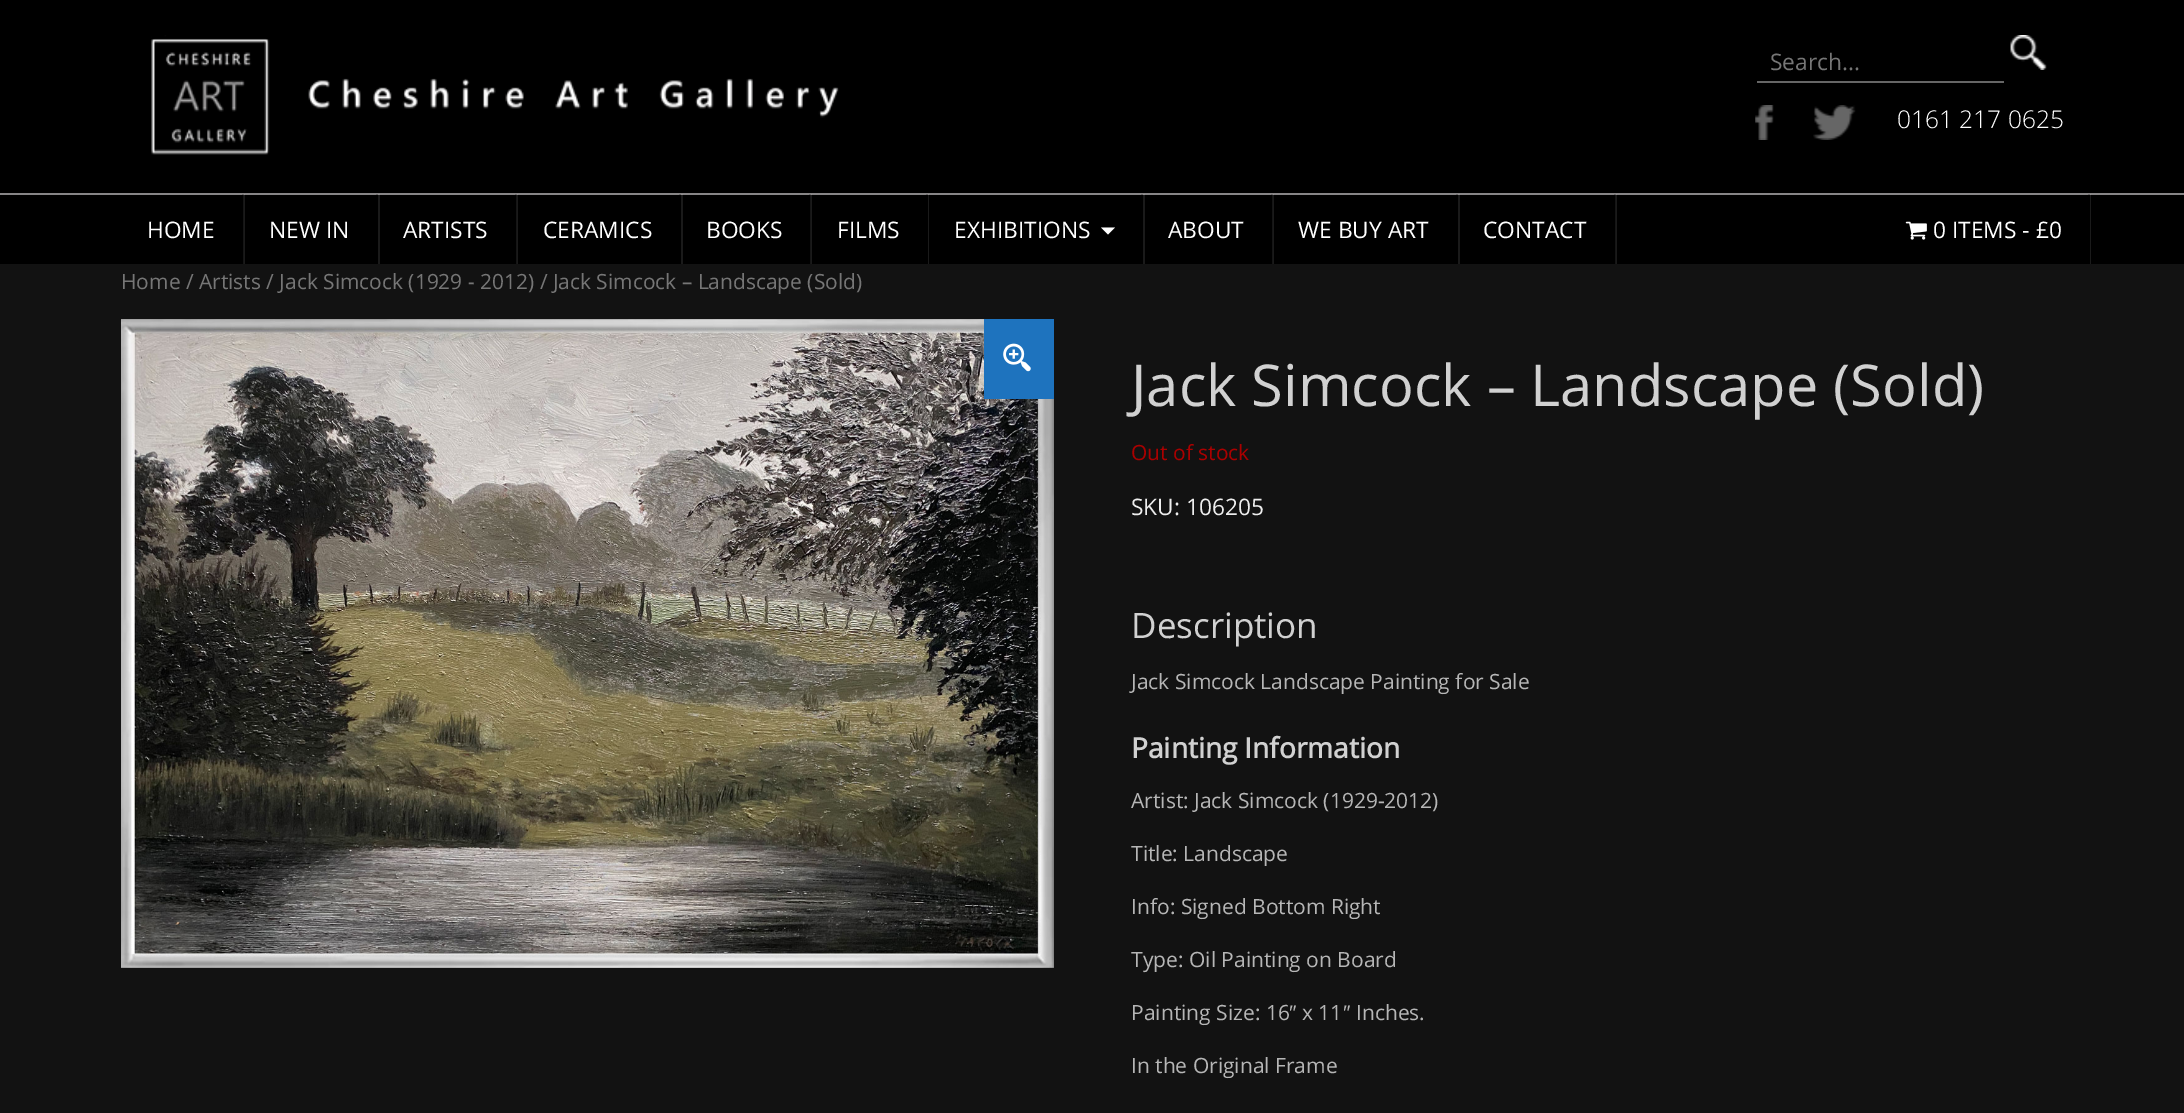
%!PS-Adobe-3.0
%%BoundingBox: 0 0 2184 1113
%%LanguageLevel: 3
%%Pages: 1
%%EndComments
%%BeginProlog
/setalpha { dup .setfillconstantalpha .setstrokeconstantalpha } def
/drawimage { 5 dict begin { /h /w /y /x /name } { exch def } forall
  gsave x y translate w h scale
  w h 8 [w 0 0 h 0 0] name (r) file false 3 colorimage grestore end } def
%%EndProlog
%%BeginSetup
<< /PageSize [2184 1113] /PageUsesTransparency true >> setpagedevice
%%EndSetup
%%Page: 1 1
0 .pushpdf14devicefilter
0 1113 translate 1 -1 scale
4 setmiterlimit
0.071 setgray
0 0 2184 1113 rectfill
0 setgray
0 0 2184 264 rectfill
(images/1.raw) 151 35 688 120 drawimage
0.4 setgray
1757 81 247 2 rectfill
(images/2.raw) 2010 35 37 35 drawimage
(images/3.raw) 1755 105 19 35 drawimage
(images/4.raw) 1813 105 43 35 drawimage
0.529 0.522 0.525 setrgbcolor
0 193 2184 2 rectfill
0.424 0.416 0.42 setrgbcolor
2088 194 2 1 rectfill
1456 194 2 1 rectfill
1141 194 2 1 rectfill
926 194 2 1 rectfill
679 194 2 1 rectfill
376 194 2 1 rectfill
0.1 setalpha
1 setgray
newpath 123 194 moveto 243 194 lineto 243 264 lineto 245 264 lineto 245 194 lineto closepath fill
0.2 setalpha
0 setgray
242 194 2 70 rectfill
0.1 setalpha
1 setgray
newpath 245 194 moveto 378 194 lineto 378 264 lineto 380 264 lineto 380 194 lineto closepath fill
newpath 380 194 moveto 516 194 lineto 516 264 lineto 518 264 lineto 518 194 lineto closepath fill
0.2 setalpha
0 setgray
515 194 2 70 rectfill
0.1 setalpha
1 setgray
newpath 518 194 moveto 681 194 lineto 681 264 lineto 683 264 lineto 683 194 lineto closepath fill
newpath 683 194 moveto 810 194 lineto 810 264 lineto 812 264 lineto 812 194 lineto closepath fill
0.2 setalpha
0 setgray
809 194 2 70 rectfill
0.1 setalpha
1 setgray
newpath 812 194 moveto 928 194 lineto 928 264 lineto 929 264 lineto 929 194 lineto closepath fill
newpath 929 194 moveto 1143 194 lineto 1143 264 lineto 1145 264 lineto 1145 194 lineto closepath fill
1 setalpha
newpath 1101 227.5 moveto 1115 227.5 lineto 1108 234.5 lineto closepath fill
0.1 setalpha
newpath 1145 194 moveto 1272 194 lineto 1272 264 lineto 1274 264 lineto 1274 194 lineto closepath fill
0.2 setalpha
0 setgray
1271 194 2 70 rectfill
0.1 setalpha
1 setgray
newpath 1274 194 moveto 1458 194 lineto 1458 264 lineto 1460 264 lineto 1460 194 lineto closepath fill
newpath 1460 194 moveto 1615 194 lineto 1615 264 lineto 1617 264 lineto 1617 194 lineto closepath fill
0.2 setalpha
0 setgray
1614 194 2 70 rectfill
0.1 setalpha
1 setgray
newpath 1881 194 moveto 2090 194 lineto 2090 264 lineto 2091 264 lineto 2091 194 lineto closepath fill
1 setalpha
(images/5.raw) 1905 221 22 19 drawimage
(images/6.raw) 121 319 933 649 drawimage
0.118 0.451 0.745 setrgbcolor
984 319 70 80 rectfill
(images/7.raw) 1003 343 28 29 drawimage
/OpenSans-Regular [22.75 0 0 -22.75 0 0] selectfont
0.463 setgray
1770 70 moveto (Search...) show
/OpenSans-Light [24.5 0 0 -24.5 0 0] selectfont
1 setgray
1897 128 moveto (0161 217 0625) show
/OpenSans-Regular [22.75 0 0 -22.75 0 0] selectfont
147 238 moveto (HOME) show
269 238 moveto (NEW IN) show
403 238 moveto (ARTISTS) show
543 238 moveto (CERAMICS) show
706 238 moveto (BOOKS) show
837 238 moveto (FILMS) show
954 238 moveto (EXHIBITIONS) show
1168 238 moveto (ABOUT) show
1298 238 moveto (WE BUY ART) show
1483 238 moveto (CONTACT) show
1933 238 moveto (0 ITEMS - £0) show
/OpenSans-Regular [20.95 0 0 -20.95 0 0] selectfont
0.463 setgray
121 289 moveto (Home / Artists / Jack Simcock \(1929 - 2012\) / Jack Simcock – Landscape \(Sold\)) show
/OpenSans-Regular [57.75 0 0 -57.75 0 0] selectfont
0.82 setgray
1131 406 moveto (Jack Simcock – Landscape \(Sold\)) show
/OpenSans-Regular [20.95 0 0 -20.95 0 0] selectfont
0.667 0 0 setrgbcolor
1131 460 moveto (Out of stock) show
/OpenSans-Regular [22.75 0 0 -22.75 0 0] selectfont
0.933 setgray
1131 515 moveto (SKU: 106205) show
/OpenSans-Regular [35 0 0 -35 0 0] selectfont
0.82 setgray
1131 638 moveto (Description) show
/OpenSans-Regular [21 0 0 -21 0 0] selectfont
0.714 setgray
1131 689 moveto (Jack Simcock Landscape Painting for Sale) show
/OpenSans-Bold [28 0 0 -28 0 0] selectfont
0.82 setgray
1131 758 moveto (Painting Information) show
/OpenSans-Regular [21 0 0 -21 0 0] selectfont
0.714 setgray
1131 808 moveto (Artist: Jack Simcock \(1929-2012\)) show
1131 861 moveto (Title: Landscape) show
1131 914 moveto (Info: Signed Bottom Right) show
1131 967 moveto (Type: Oil Painting on Board) show
1131 1020 moveto (Painting Size: 16) show
/LiberationSans-Regular [21 0 0 -21 0 0] selectfont
1289 1020 moveto (″) show
/OpenSans-Regular [21 0 0 -21 0 0] selectfont
1302 1020 moveto (x 11) show
/LiberationSans-Regular [21 0 0 -21 0 0] selectfont
1343 1020 moveto (″) show
/OpenSans-Regular [21 0 0 -21 0 0] selectfont
1356 1020 moveto (Inches.) show
1131 1073 moveto (In the Original Frame) show
.poppdf14devicefilter showpage
%%EOF
